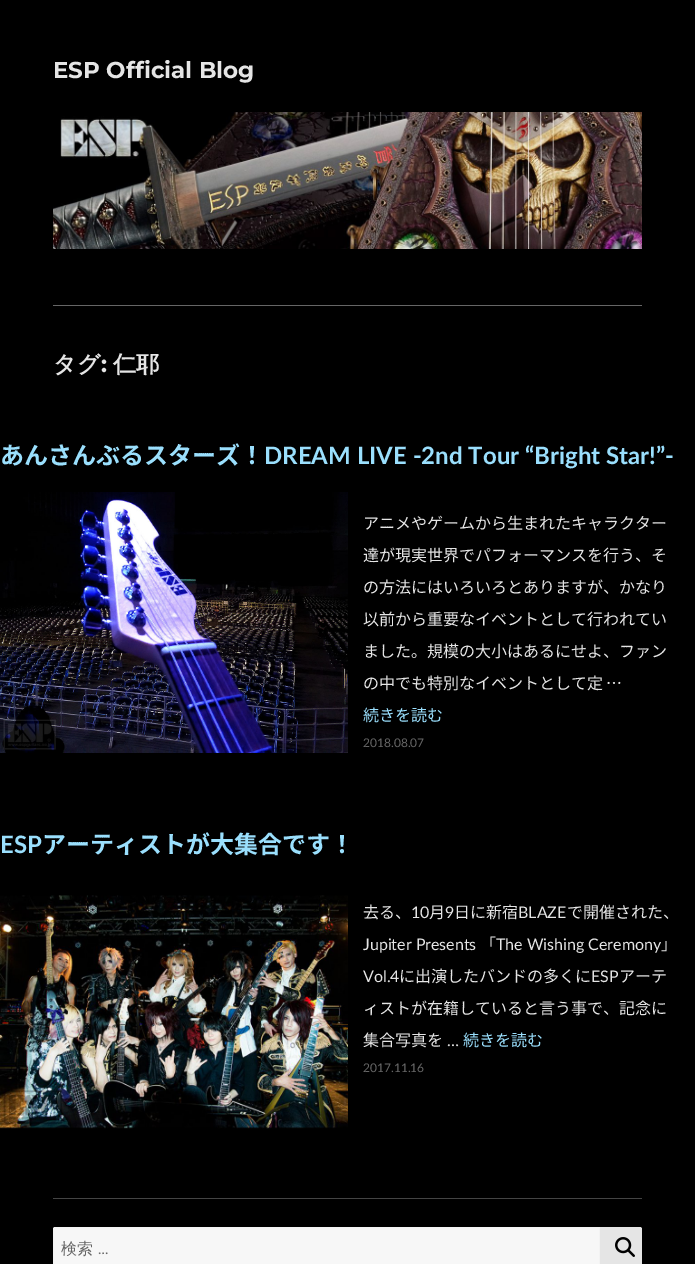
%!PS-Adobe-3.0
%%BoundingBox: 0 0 695 1264
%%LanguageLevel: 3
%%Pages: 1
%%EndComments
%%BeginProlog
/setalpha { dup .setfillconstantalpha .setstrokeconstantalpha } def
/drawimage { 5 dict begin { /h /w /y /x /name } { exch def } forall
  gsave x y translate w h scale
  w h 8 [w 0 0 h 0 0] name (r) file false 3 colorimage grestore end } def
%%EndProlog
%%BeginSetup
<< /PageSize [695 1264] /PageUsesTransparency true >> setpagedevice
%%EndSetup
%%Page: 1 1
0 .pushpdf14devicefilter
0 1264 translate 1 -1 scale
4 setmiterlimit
0 setgray
0 0 695 1264 rectfill
(images/1.raw) 53 112 589 137 drawimage
0.4 setgray
53 305 589 1 rectfill
(images/2.raw) 0 492 348 261 drawimage
(images/3.raw) 0 895 348 234 drawimage
0.267 setgray
53 1198 589 1 rectfill
0.969 setgray
newpath 55 1227 moveto 600 1227 lineto 600 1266 lineto 55 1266 lineto 54 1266 53 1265 53 1264 curveto 53 1229 lineto 53 1228 54 1227 55 1227 curveto closepath fill
0.2 setalpha
0.898 setgray
newpath 55 1227.5 moveto 599.5 1227.5 lineto 599.5 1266.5 lineto 55 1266.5 lineto 54 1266.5 53.5 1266 53.5 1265 curveto 53.5 1229 lineto 53.5 1228 54 1227.5 55 1227.5 curveto closepath stroke
1 setalpha
newpath 600 1227 moveto 640 1227 lineto 641 1227 642 1228 642 1229 curveto 642 1264 lineto 642 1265 641 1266 640 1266 curveto 600 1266 lineto closepath fill
(images/4.raw) 615 1237 20 20 drawimage
/Montserrat-Bold [23 0 0 -23 0 0] selectfont
53 78 moveto (ESP Official Blog) show
/WenQuanYiZenHei-Bold [23 0 0 -23 0 0] selectfont
53 372 moveto (タグ) show
/Montserrat-Bold [23 0 0 -23 0 0] selectfont
101 372 moveto (:) show
/WenQuanYiZenHei-Bold [23 0 0 -23 0 0] selectfont
113 372 moveto (仁耶) show
/NotoSansJP-Bold [24 0 0 -24 0 0] selectfont
0.604 0.875 0.992 setrgbcolor
0 464 moveto (あんさんぶるスターズ！) show
/Lato-Bold [24 0 0 -24 0 0] selectfont
264 464 moveto (DREAM LIVE -2nd Tour “Bright Star!”-) show
/NotoSansJP-Regular [16 0 0 -16 0 0] selectfont
0.898 setgray
363 529 moveto (アニメやゲームから生まれたキャラクター) show
363 561 moveto (達が現実世界でパフォーマンスを行う、そ) show
363 593 moveto (の方法にはいろいろとありますが、かなり) show
363 625 moveto (以前から重要なイベントとして行われてい) show
363 657 moveto (ました。規模の大小はあるにせよ、ファン) show
363 689 moveto -1 0 32 (の中でも特別なイベントとして定 …) widthshow
0.604 0.875 0.992 setrgbcolor
363 721 moveto (続きを読む) show
/Lato-Regular [12 0 0 -12 0 0] selectfont
0.4 setgray
363 747 moveto (2018.08.07) show
/Lato-Bold [24 0 0 -24 0 0] selectfont
0.604 0.875 0.992 setrgbcolor
0 853 moveto (ESP) show
/NotoSansJP-Bold [24 0 0 -24 0 0] selectfont
42 853 moveto (アーティストが大集合です！) show
/NotoSansJP-Regular [16 0 0 -16 0 0] selectfont
0.898 setgray
363 918 moveto (去る、) show
/Lato-Regular [16 0 0 -16 0 0] selectfont
411 918 moveto (10) show
/NotoSansJP-Regular [16 0 0 -16 0 0] selectfont
429 918 moveto (月) show
/Lato-Regular [16 0 0 -16 0 0] selectfont
445 918 moveto (9) show
/NotoSansJP-Regular [16 0 0 -16 0 0] selectfont
454 918 moveto (日に新宿) show
/Lato-Regular [16 0 0 -16 0 0] selectfont
518 918 moveto (BLAZE) show
/NotoSansJP-Regular [16 0 0 -16 0 0] selectfont
567 918 moveto (で開催された、) show
/Lato-Regular [16 0 0 -16 0 0] selectfont
363 950 moveto (Jupiter Presents) show
/NotoSansJP-Regular [16 0 0 -16 0 0] selectfont
480 950 moveto (「) show
/Lato-Regular [16 0 0 -16 0 0] selectfont
496 950 moveto (The Wishing Ceremony) show
/NotoSansJP-Regular [16 0 0 -16 0 0] selectfont
661 950 moveto (」) show
/Lato-Regular [16 0 0 -16 0 0] selectfont
363 982 moveto (Vol.4) show
/NotoSansJP-Regular [16 0 0 -16 0 0] selectfont
399 982 moveto (に出演したバンドの多くに) show
/Lato-Regular [16 0 0 -16 0 0] selectfont
591 982 moveto (ESP) show
/NotoSansJP-Regular [16 0 0 -16 0 0] selectfont
619 982 moveto (アーテ) show
363 1014 moveto (ィストが在籍していると言う事で、記念に) show
363 1046 moveto (集合写真を) show
/Lato-Regular [16 0 0 -16 0 0] selectfont
447 1046 moveto (…) show
/NotoSansJP-Regular [16 0 0 -16 0 0] selectfont
0.604 0.875 0.992 setrgbcolor
463 1046 moveto (続きを読む) show
/Lato-Regular [12 0 0 -12 0 0] selectfont
0.4 setgray
363 1072 moveto (2017.11.16) show
/WenQuanYiZenHei-Medium [16 0 0 -16 0 0] selectfont
61 1254 moveto (検索) show
/Montserrat-Regular [16 0 0 -16 0 0] selectfont
98 1254 moveto (…) show
.poppdf14devicefilter showpage
%%EOF
